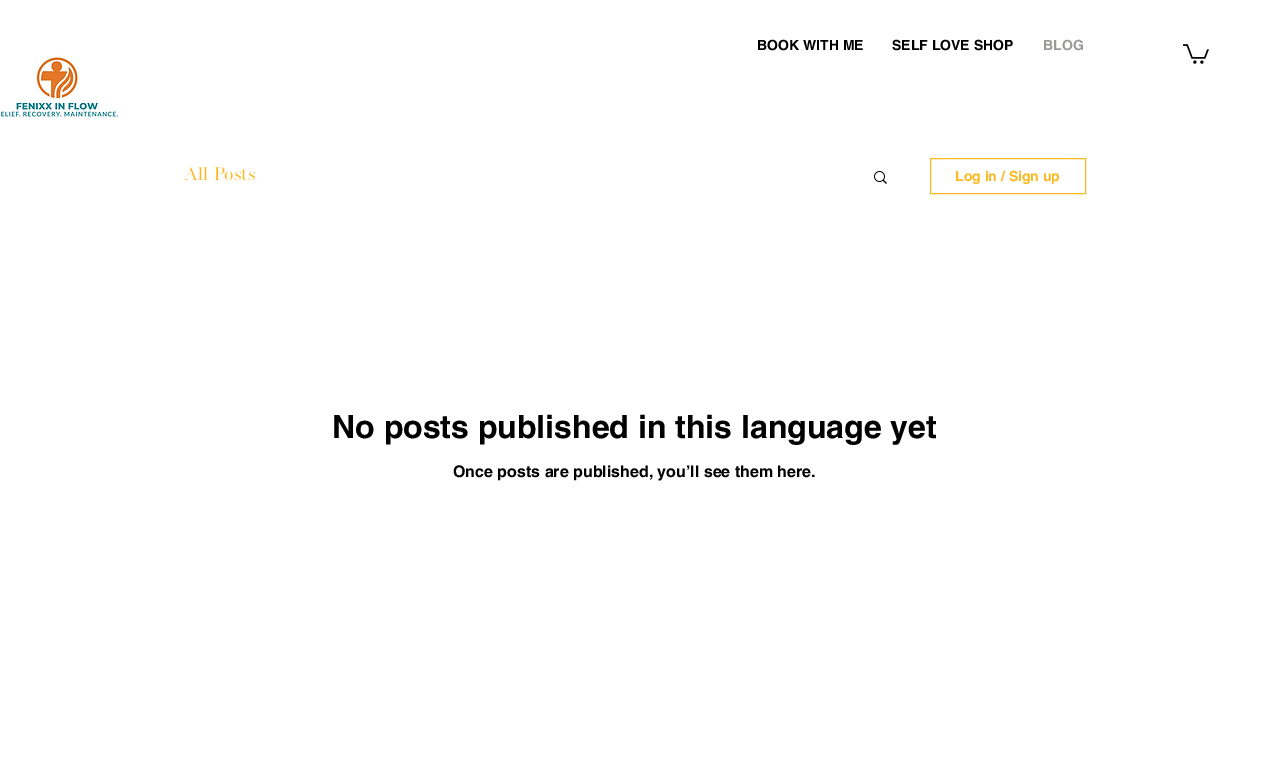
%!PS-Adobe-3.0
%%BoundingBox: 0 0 1269 769
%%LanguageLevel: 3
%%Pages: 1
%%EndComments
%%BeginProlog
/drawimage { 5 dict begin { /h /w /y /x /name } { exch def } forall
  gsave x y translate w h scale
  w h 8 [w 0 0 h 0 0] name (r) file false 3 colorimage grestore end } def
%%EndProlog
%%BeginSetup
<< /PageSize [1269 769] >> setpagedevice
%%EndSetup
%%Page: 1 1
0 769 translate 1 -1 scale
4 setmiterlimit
1 setgray
0 0 1269 769 rectfill
(images/1.raw) 1 55 118 64 drawimage
(images/2.raw) 1183 44 26 20 drawimage
(images/3.raw) 874 171 13 13 drawimage
0.984 0.722 0.125 setrgbcolor
930.5 158.5 155 35 rectstroke
/helvetica-Bold [14 0 0 -14 0 0] selectfont
0 setgray
757 50 moveto (BOOK WITH ME) show
892 50 moveto (SELF LOVE SHOP) show
0.6 0.6 0.592 setrgbcolor
1043 50 moveto (BLOG) show
/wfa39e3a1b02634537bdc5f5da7-Regular [16 0 0 -16 0 0] selectfont
0.984 0.722 0.125 setrgbcolor
184 180 moveto (All Posts) show
/helvetica-Bold [14 0 0 -14 0 0] selectfont
955 181 moveto (Log in / Sign up) show
/helvetica-Bold [32 0 0 -32 0 0] selectfont
0 setgray
332 438 moveto (No posts published in this language yet) show
/helvetica-Bold [16 0 0 -16 0 0] selectfont
453 477 moveto (Once posts are published, you’ll see them here.) show
showpage
%%EOF
